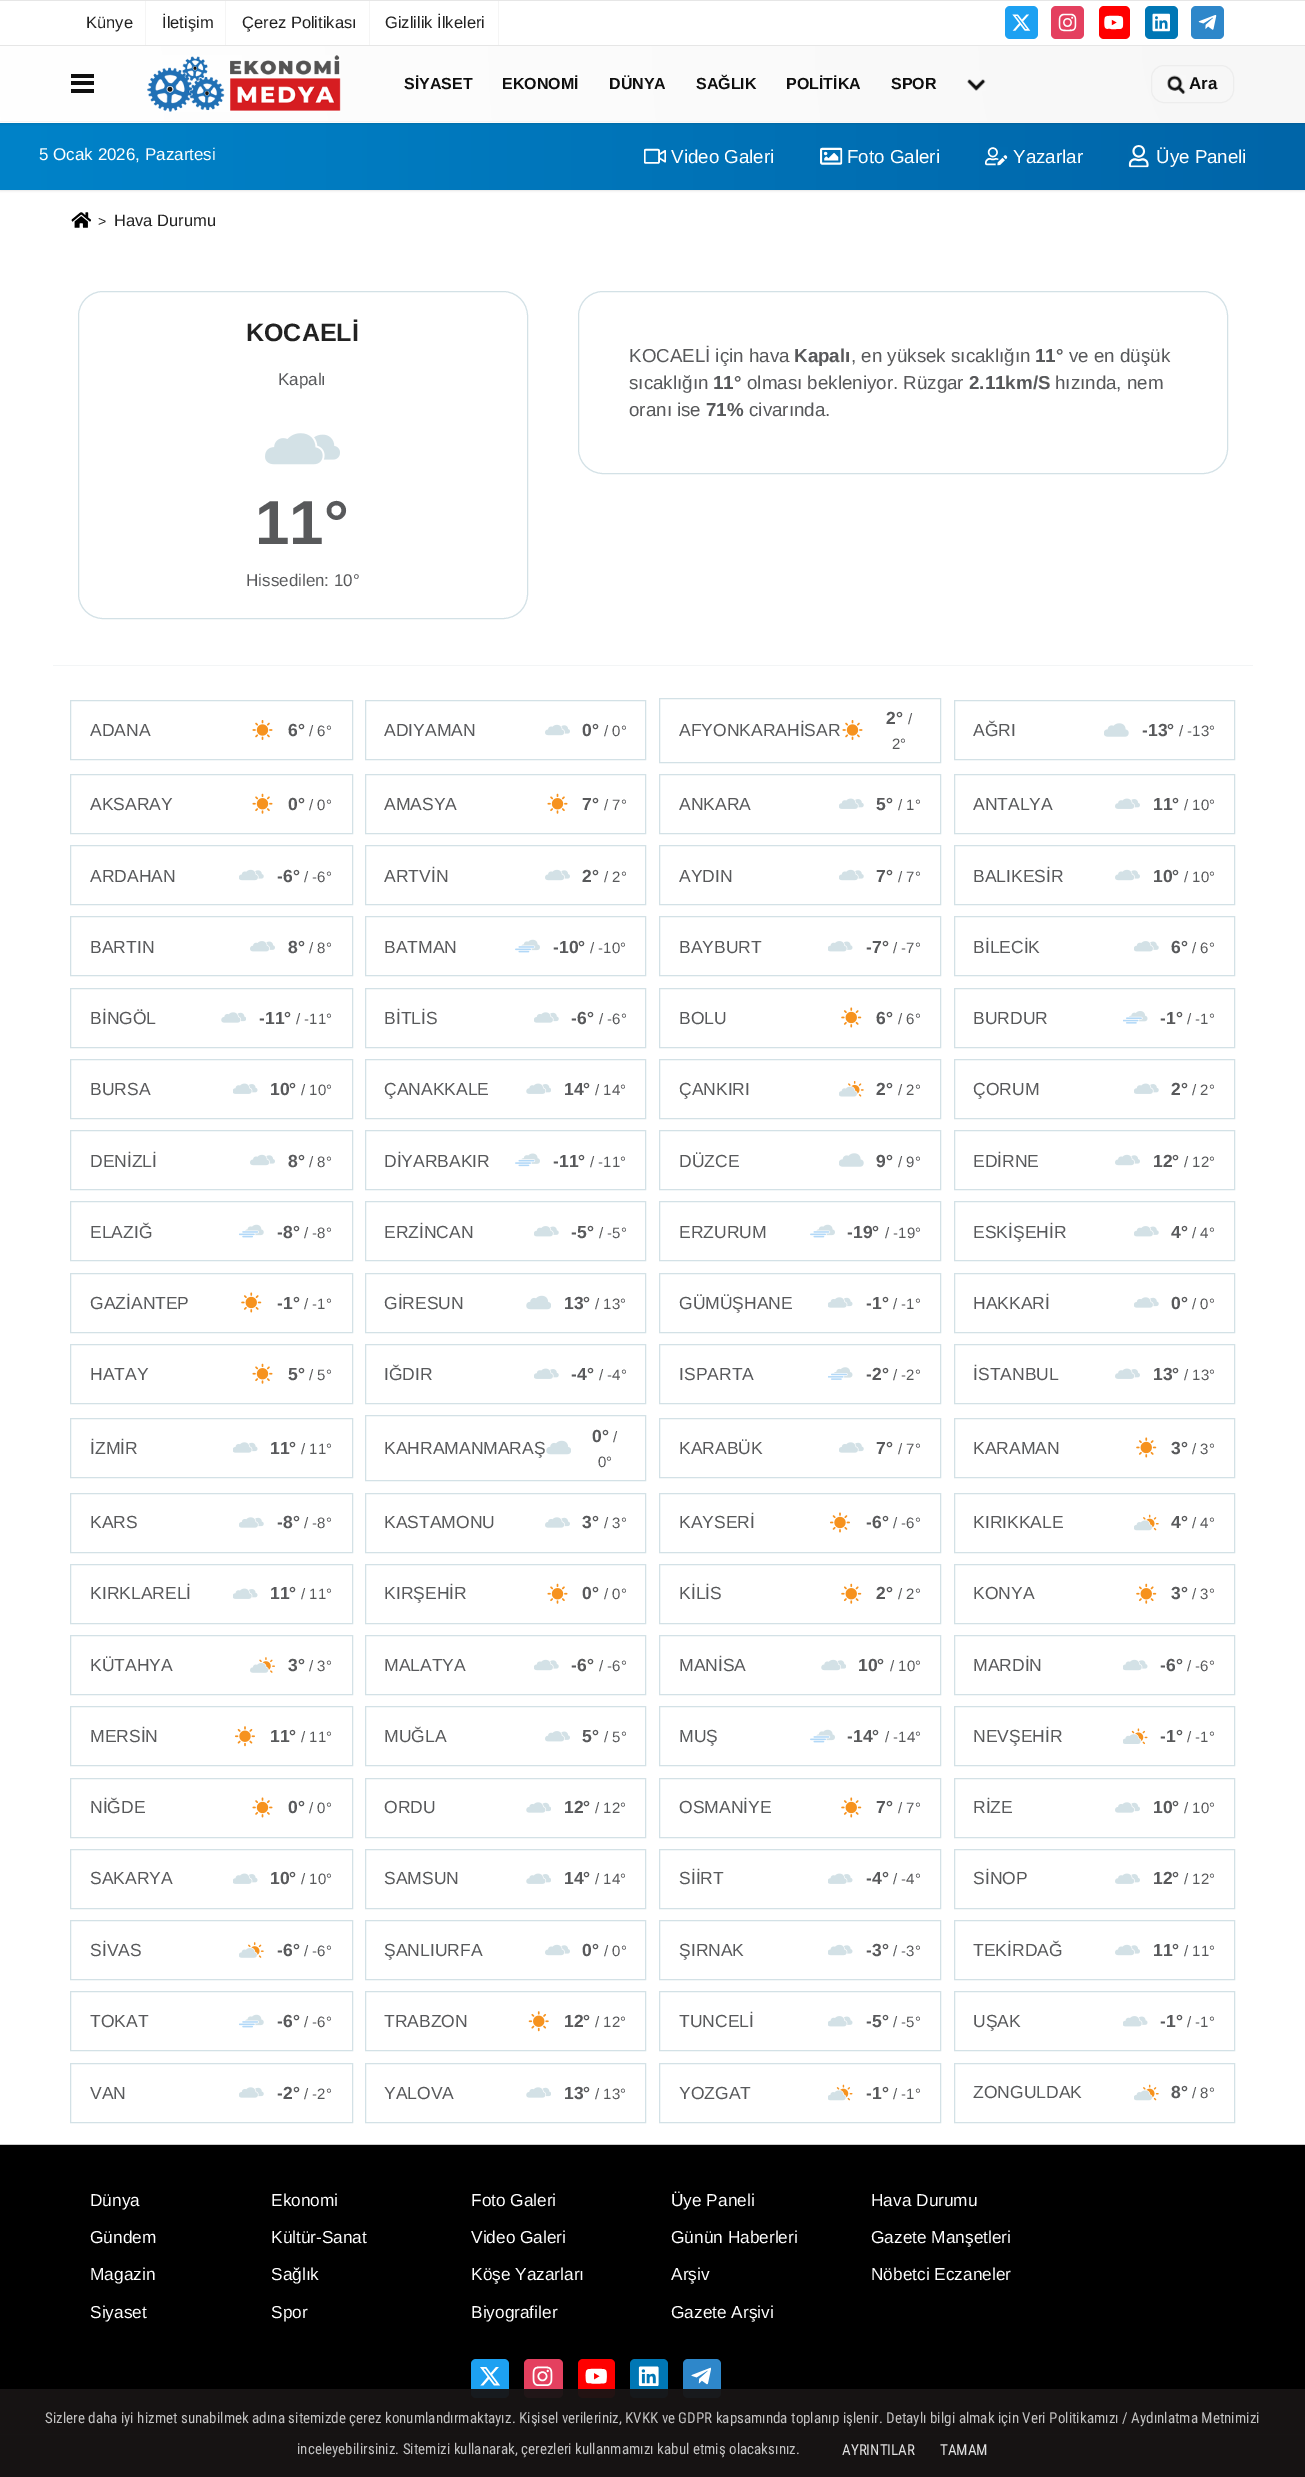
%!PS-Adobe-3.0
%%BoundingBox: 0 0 1305 2477
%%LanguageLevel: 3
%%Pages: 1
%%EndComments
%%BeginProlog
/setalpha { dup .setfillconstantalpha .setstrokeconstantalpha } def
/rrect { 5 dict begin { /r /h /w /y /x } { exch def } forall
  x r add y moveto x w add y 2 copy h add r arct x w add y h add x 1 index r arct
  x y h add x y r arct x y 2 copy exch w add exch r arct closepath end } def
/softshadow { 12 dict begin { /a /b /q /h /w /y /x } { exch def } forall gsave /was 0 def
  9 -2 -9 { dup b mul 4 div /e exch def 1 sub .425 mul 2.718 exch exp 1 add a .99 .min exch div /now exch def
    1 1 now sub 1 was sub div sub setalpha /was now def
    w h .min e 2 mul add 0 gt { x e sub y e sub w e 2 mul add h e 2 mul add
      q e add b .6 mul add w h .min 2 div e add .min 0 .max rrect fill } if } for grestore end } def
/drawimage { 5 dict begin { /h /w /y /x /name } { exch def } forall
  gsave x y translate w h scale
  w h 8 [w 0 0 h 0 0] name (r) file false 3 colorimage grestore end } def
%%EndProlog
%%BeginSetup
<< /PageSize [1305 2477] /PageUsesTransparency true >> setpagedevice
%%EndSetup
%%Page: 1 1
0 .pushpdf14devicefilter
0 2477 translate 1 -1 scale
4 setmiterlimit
1 setgray
0 0 1305 2477 rectfill
0.902 setgray
0 0 1305 1 rectfill
0.961 setgray
145 1 1 44 rectfill
225 1 1 44 rectfill
369 1 1 44 rectfill
498 1 1 44 rectfill
0.114 0.631 0.949 setrgbcolor
1005 6 33 33 5 rrect fill
(images/1.raw) 1012 14 19 17 drawimage
0.894 0.251 0.373 setrgbcolor
1051 6 33 33 5 rrect fill
(images/2.raw) 1058 13 19 19 drawimage
1 0 0 setrgbcolor
1099 6 31 33 5 rrect fill
(images/3.raw) 1104 15 20 15 drawimage
0 0.467 0.71 setrgbcolor
1145 6 33 33 5 rrect fill
(images/4.raw) 1152 13 18 19 drawimage
0.18 0.529 0.792 setrgbcolor
1191 6 33 33 5 rrect fill
(images/5.raw) 1198 15 19 15 drawimage
0.902 setgray
0 45 1305 1 rectfill
0 setgray
0 124 1305 67 0 1 0.1 softshadow
gsave newpath 0 123 moveto 1305 123 lineto 1305 190 lineto 0 190 lineto closepath clip newpath
<< /ShadingType 2 /ColorSpace /DeviceRGB /Coords [0 156 1305 156] /Extend [true true] /Function << /FunctionType 2 /Domain [0 1] /C0 [0 0.514 0.788] /C1 [0 0.396 0.659] /N 1 >> >> shfill grestore
0 48 1305 76 0 1 0.1 softshadow
gsave newpath 0 46 moveto 1305 46 lineto 1305 121 lineto 0 121 lineto closepath clip newpath 1305 46 translate 1307 1307 scale
<< /ShadingType 3 /ColorSpace /DeviceRGB /Coords [0 0 0 0 0 1] /Extend [true true] /Function << /FunctionType 2 /Domain [0 1] /C0 [0.969 0.969 0.969] /C1 [1 1 1] /N 1 >> >> shfill grestore
gsave newpath 0 122 moveto 1305 122 lineto 1305 123 lineto 0 123 lineto closepath clip newpath 1305 121 translate 1307 1307 scale
<< /ShadingType 3 /ColorSpace /DeviceRGB /Coords [0 0 0 0 0 1] /Extend [true true] /Function << /FunctionType 2 /Domain [0 1] /C0 [0.969 0.969 0.969] /C1 [1 1 1] /N 1 >> >> shfill grestore
0.961 setgray
0 121 1305 1 rectfill
0.059 setgray
71 74 23 4 rectfill
71 81 23 4 rectfill
71 89 23 4 rectfill
(images/6.raw) 147 55 194 57 drawimage
(images/7.raw) 967 79 19 12 drawimage
0.929 setgray
1151.5 65.5 82 37 12.5 rrect stroke
(images/8.raw) 1167 75 19 19 drawimage
(images/9.raw) 644 148 22 16 drawimage
(images/10.raw) 820 147 23 18 drawimage
(images/11.raw) 985 147 23 19 drawimage
(images/12.raw) 1128 145 21 23 drawimage
(images/13.raw) 71 212 20 16 drawimage
0.827 0.882 0.902 setrgbcolor
78.5 291.5 449 327 24.5 rrect stroke
(images/14.raw) 265 433 75 32 drawimage
578.5 291.5 649 182 24.5 rrect stroke
0.953 0.961 0.965 setrgbcolor
53 665 1200 1 rectfill
0.827 0.882 0.902 setrgbcolor
70.5 700.5 282 59 rectstroke
(images/15.raw) 252 720 21 20 drawimage
365.5 700.5 280 59 rectstroke
(images/16.raw) 545 724 25 12 drawimage
659.5 698.5 281 64 rectstroke
(images/15.raw) 842 720 21 20 drawimage
954.5 700.5 280 59 rectstroke
(images/17.raw) 1104 723 25 14 drawimage
70.5 774.5 282 59 rectstroke
(images/18.raw) 252 793 21 21 drawimage
365.5 774.5 280 59 rectstroke
(images/18.raw) 547 793 21 21 drawimage
659.5 774.5 281 59 rectstroke
(images/19.raw) 839 798 25 11 drawimage
954.5 774.5 280 59 rectstroke
(images/20.raw) 1115 798 25 11 drawimage
70.5 845.5 282 59 rectstroke
(images/21.raw) 239 869 25 12 drawimage
365.5 845.5 280 59 rectstroke
(images/16.raw) 545 869 25 12 drawimage
659.5 845.5 281 59 rectstroke
(images/21.raw) 839 869 25 12 drawimage
954.5 845.5 280 59 rectstroke
(images/16.raw) 1115 869 25 12 drawimage
70.5 916.5 282 59 rectstroke
(images/22.raw) 250 941 25 11 drawimage
365.5 916.5 280 59 rectstroke
(images/23.raw) 515 939 25 14 drawimage
659.5 916.5 281 59 rectstroke
(images/24.raw) 828 941 25 11 drawimage
954.5 916.5 280 59 rectstroke
(images/25.raw) 1134 941 25 11 drawimage
70.5 988.5 282 59 rectstroke
(images/26.raw) 221 1012 25 11 drawimage
365.5 988.5 280 59 rectstroke
(images/27.raw) 534 1012 25 11 drawimage
659.5 988.5 281 59 rectstroke
(images/28.raw) 841 1007 21 21 drawimage
954.5 988.5 280 59 rectstroke
(images/29.raw) 1123 1011 25 13 drawimage
70.5 1059.5 282 59 rectstroke
(images/30.raw) 233 1083 25 11 drawimage
365.5 1059.5 280 59 rectstroke
(images/31.raw) 526 1083 25 11 drawimage
659.5 1059.5 281 59 rectstroke
(images/32.raw) 839 1081 25 16 drawimage
954.5 1059.5 280 59 rectstroke
(images/19.raw) 1134 1083 25 11 drawimage
70.5 1130.5 282 59 rectstroke
(images/16.raw) 250 1154 25 12 drawimage
365.5 1130.5 280 59 rectstroke
(images/33.raw) 515 1153 25 14 drawimage
659.5 1130.5 281 59 rectstroke
(images/17.raw) 839 1153 25 14 drawimage
954.5 1130.5 280 59 rectstroke
(images/16.raw) 1115 1154 25 12 drawimage
70.5 1201.5 282 59 rectstroke
(images/34.raw) 239 1224 25 14 drawimage
365.5 1201.5 280 59 rectstroke
(images/25.raw) 534 1226 25 11 drawimage
659.5 1201.5 281 59 rectstroke
(images/23.raw) 810 1224 25 14 drawimage
954.5 1201.5 280 59 rectstroke
(images/25.raw) 1134 1226 25 11 drawimage
70.5 1273.5 282 59 rectstroke
(images/28.raw) 241 1292 21 21 drawimage
365.5 1273.5 280 59 rectstroke
(images/35.raw) 526 1295 25 15 drawimage
659.5 1273.5 281 59 rectstroke
(images/36.raw) 828 1297 25 11 drawimage
954.5 1273.5 280 59 rectstroke
(images/27.raw) 1134 1297 25 11 drawimage
70.5 1344.5 282 59 rectstroke
(images/18.raw) 252 1363 21 21 drawimage
365.5 1344.5 280 59 rectstroke
(images/19.raw) 534 1368 25 11 drawimage
659.5 1344.5 281 59 rectstroke
(images/37.raw) 828 1367 25 13 drawimage
954.5 1344.5 280 59 rectstroke
(images/20.raw) 1115 1368 25 11 drawimage
70.5 1418.5 282 59 rectstroke
(images/36.raw) 233 1442 25 11 drawimage
365.5 1415.5 280 65 rectstroke
(images/35.raw) 546 1440 25 15 drawimage
659.5 1418.5 281 59 rectstroke
(images/27.raw) 839 1442 25 11 drawimage
954.5 1418.5 280 59 rectstroke
(images/28.raw) 1136 1437 21 21 drawimage
70.5 1493.5 282 59 rectstroke
(images/27.raw) 239 1517 25 11 drawimage
365.5 1493.5 280 59 rectstroke
(images/38.raw) 545 1517 25 11 drawimage
659.5 1493.5 281 59 rectstroke
(images/39.raw) 830 1512 20 21 drawimage
954.5 1493.5 280 59 rectstroke
(images/40.raw) 1134 1514 25 17 drawimage
70.5 1564.5 282 59 rectstroke
(images/30.raw) 233 1588 25 11 drawimage
365.5 1564.5 280 59 rectstroke
(images/18.raw) 547 1583 21 21 drawimage
659.5 1564.5 281 59 rectstroke
(images/41.raw) 841 1583 21 21 drawimage
954.5 1564.5 280 59 rectstroke
(images/41.raw) 1136 1583 21 21 drawimage
70.5 1635.5 282 59 rectstroke
(images/42.raw) 250 1657 25 16 drawimage
365.5 1635.5 280 59 rectstroke
(images/21.raw) 534 1659 25 12 drawimage
659.5 1635.5 281 59 rectstroke
(images/43.raw) 821 1659 25 12 drawimage
954.5 1635.5 280 59 rectstroke
(images/44.raw) 1123 1659 25 12 drawimage
70.5 1706.5 282 59 rectstroke
(images/45.raw) 235 1726 20 21 drawimage
365.5 1706.5 280 59 rectstroke
(images/22.raw) 545 1731 25 11 drawimage
659.5 1706.5 281 59 rectstroke
(images/23.raw) 810 1729 25 14 drawimage
954.5 1706.5 280 59 rectstroke
(images/46.raw) 1123 1728 25 17 drawimage
70.5 1778.5 282 59 rectstroke
(images/47.raw) 252 1797 21 21 drawimage
365.5 1778.5 280 59 rectstroke
(images/26.raw) 526 1802 25 11 drawimage
659.5 1778.5 281 59 rectstroke
(images/28.raw) 841 1797 21 21 drawimage
954.5 1778.5 280 59 rectstroke
(images/38.raw) 1115 1802 25 11 drawimage
70.5 1849.5 282 59 rectstroke
(images/30.raw) 233 1873 25 11 drawimage
365.5 1849.5 280 59 rectstroke
(images/31.raw) 526 1873 25 11 drawimage
659.5 1849.5 281 59 rectstroke
(images/30.raw) 828 1873 25 11 drawimage
954.5 1849.5 280 59 rectstroke
(images/20.raw) 1115 1873 25 11 drawimage
70.5 1920.5 282 59 rectstroke
(images/48.raw) 239 1942 25 16 drawimage
365.5 1920.5 280 59 rectstroke
(images/16.raw) 545 1944 25 12 drawimage
659.5 1920.5 281 59 rectstroke
(images/44.raw) 828 1944 25 12 drawimage
954.5 1920.5 280 59 rectstroke
(images/16.raw) 1115 1944 25 12 drawimage
70.5 1991.5 282 59 rectstroke
(images/34.raw) 239 2014 25 14 drawimage
365.5 1991.5 280 59 rectstroke
(images/49.raw) 528 2011 21 21 drawimage
659.5 1991.5 281 59 rectstroke
(images/24.raw) 828 2016 25 11 drawimage
954.5 1991.5 280 59 rectstroke
(images/24.raw) 1123 2016 25 11 drawimage
70.5 2063.5 282 59 rectstroke
(images/27.raw) 239 2087 25 11 drawimage
365.5 2063.5 280 59 rectstroke
(images/26.raw) 526 2087 25 11 drawimage
659.5 2063.5 281 59 rectstroke
(images/50.raw) 828 2084 25 17 drawimage
954.5 2063.5 280 59 rectstroke
(images/40.raw) 1134 2084 25 17 drawimage
0 setgray
0 2145 1305 332 rectfill
0.8 setgray
0 2144 1305 1 rectfill
0.114 0.631 0.949 setrgbcolor
471 2359 38 39 5 rrect fill
(images/51.raw) 480 2367 20 19 drawimage
0.894 0.251 0.373 setrgbcolor
524 2359 39 39 5 rrect fill
(images/52.raw) 532 2366 21 20 drawimage
1 0 0 setrgbcolor
578 2359 37 39 5 rrect fill
(images/53.raw) 585 2368 22 16 drawimage
0 0.467 0.71 setrgbcolor
630 2359 38 39 5 rrect fill
(images/54.raw) 638 2366 21 20 drawimage
0.18 0.529 0.792 setrgbcolor
683 2359 38 39 5 rrect fill
(images/55.raw) 691 2367 20 18 drawimage
0.055 0.059 0.067 setrgbcolor
0 2434 1305 1 rectfill
0.95 setalpha
0.09 0.078 0.078 setrgbcolor
0 2389 1305 88 rectfill
/LiberationSans-Regular [16.5 0 0 -16.5 0 0] selectfont
1 setalpha
0.133 setgray
86 28 moveto (Künye) show
162 28 moveto (İletişim) show
242 28 moveto (Çerez Politikası) show
385 28 moveto (Gizlilik İlkeleri) show
/LiberationSans-Bold [16 0 0 -16 0 0] selectfont
0.059 setgray
404 89 moveto (SİYASET) show
502 89 moveto (EKONOMİ) show
609 89 moveto (DÜNYA) show
696 89 moveto (SAĞLIK) show
786 89 moveto (POLİTİKA) show
891 89 moveto (SPOR) show
/LiberationSans-Bold [17 0 0 -17 0 0] selectfont
1189 89 moveto (Ara) show
/LiberationSans-Regular [17 0 0 -17 0 0] selectfont
1 setgray
39 160 moveto (5 Ocak 2026, Pazartesi) show
/LiberationSans-Regular [18.75 0 0 -18.75 0 0] selectfont
671 163 moveto (Video Galeri) show
847 163 moveto (Foto Galeri) show
1013 163 moveto (Yazarlar) show
1156 163 moveto (Üye Paneli) show
/LiberationSans-Regular [14 0 0 -14 0 0] selectfont
0.133 setgray
98 226 moveto (>) show
/LiberationSans-Regular [16.5 0 0 -16.5 0 0] selectfont
114 226 moveto (Hava Durumu) show
/LiberationSans-Bold [25 0 0 -25 0 0] selectfont
246 341 moveto (KOCAELİ) show
/LiberationSans-Regular [17 0 0 -17 0 0] selectfont
0.345 0.349 0.357 setrgbcolor
278 385 moveto (Kapalı) show
/LiberationSans-Bold [62 0 0 -62 0 0] selectfont
255 544 moveto (11°) show
/LiberationSans-Regular [17 0 0 -17 0 0] selectfont
246 586 moveto (Hissedilen: 10°) show
/LiberationSans-Regular [18.75 0 0 -18.75 0 0] selectfont
629 362 moveto (KOCAELİ için hava) show
/LiberationSans-Bold [18.75 0 0 -18.75 0 0] selectfont
794 362 moveto (Kapalı) show
/LiberationSans-Regular [18.75 0 0 -18.75 0 0] selectfont
851 362 moveto (, en yüksek sıcaklığın) show
/LiberationSans-Bold [18.75 0 0 -18.75 0 0] selectfont
1035 362 moveto (11°) show
/LiberationSans-Regular [18.75 0 0 -18.75 0 0] selectfont
1069 362 moveto (ve en düşük) show
629 389 moveto (sıcaklığın) show
/LiberationSans-Bold [18.75 0 0 -18.75 0 0] selectfont
713 389 moveto (11°) show
/LiberationSans-Regular [18.75 0 0 -18.75 0 0] selectfont
747 389 moveto (olması bekleniyor. Rüzgar) show
/LiberationSans-Bold [18.75 0 0 -18.75 0 0] selectfont
969 389 moveto (2.11km/S) show
/LiberationSans-Regular [18.75 0 0 -18.75 0 0] selectfont
1055 389 moveto (hızında, nem) show
629 416 moveto (oranı ise) show
/LiberationSans-Bold [18.75 0 0 -18.75 0 0] selectfont
706 416 moveto (71%) show
/LiberationSans-Regular [18.75 0 0 -18.75 0 0] selectfont
749 416 moveto (civarında.) show
/LiberationSans-Regular [17.5 0 0 -17.5 0 0] selectfont
90 736 moveto (ADANA) show
/LiberationSans-Bold [17.5 0 0 -17.5 0 0] selectfont
288 736 moveto (6°) show
/LiberationSans-Regular [15 0 0 -15 0 0] selectfont
309 736 moveto (/ 6°) show
/LiberationSans-Regular [17.5 0 0 -17.5 0 0] selectfont
384 736 moveto (ADIYAMAN) show
/LiberationSans-Bold [17.5 0 0 -17.5 0 0] selectfont
582 736 moveto (0°) show
/LiberationSans-Regular [15 0 0 -15 0 0] selectfont
604 736 moveto (/ 0°) show
/LiberationSans-Regular [17.5 0 0 -17.5 0 0] selectfont
679 736 moveto (AFYONKARAHİSAR) show
/LiberationSans-Bold [17.5 0 0 -17.5 0 0] selectfont
886 724 moveto (2°) show
/LiberationSans-Regular [15 0 0 -15 0 0] selectfont
908 724 moveto (/) show
892 749 moveto (2°) show
/LiberationSans-Regular [17.5 0 0 -17.5 0 0] selectfont
973 736 moveto (AĞRI) show
/LiberationSans-Bold [17.5 0 0 -17.5 0 0] selectfont
1142 736 moveto (-13°) show
/LiberationSans-Regular [15 0 0 -15 0 0] selectfont
1179 736 moveto (/ -13°) show
/LiberationSans-Regular [17.5 0 0 -17.5 0 0] selectfont
90 810 moveto (AKSARAY) show
/LiberationSans-Bold [17.5 0 0 -17.5 0 0] selectfont
288 810 moveto (0°) show
/LiberationSans-Regular [15 0 0 -15 0 0] selectfont
309 810 moveto (/ 0°) show
/LiberationSans-Regular [17.5 0 0 -17.5 0 0] selectfont
384 810 moveto (AMASYA) show
/LiberationSans-Bold [17.5 0 0 -17.5 0 0] selectfont
582 810 moveto (7°) show
/LiberationSans-Regular [15 0 0 -15 0 0] selectfont
604 810 moveto (/ 7°) show
/LiberationSans-Regular [17.5 0 0 -17.5 0 0] selectfont
679 810 moveto (ANKARA) show
/LiberationSans-Bold [17.5 0 0 -17.5 0 0] selectfont
876 810 moveto (5°) show
/LiberationSans-Regular [15 0 0 -15 0 0] selectfont
898 810 moveto (/ 1°) show
/LiberationSans-Regular [17.5 0 0 -17.5 0 0] selectfont
973 810 moveto (ANTALYA) show
/LiberationSans-Bold [17.5 0 0 -17.5 0 0] selectfont
1153 810 moveto (11°) show
/LiberationSans-Regular [15 0 0 -15 0 0] selectfont
1184 810 moveto (/ 10°) show
/LiberationSans-Regular [17.5 0 0 -17.5 0 0] selectfont
90 882 moveto (ARDAHAN) show
/LiberationSans-Bold [17.5 0 0 -17.5 0 0] selectfont
277 882 moveto (-6°) show
/LiberationSans-Regular [15 0 0 -15 0 0] selectfont
304 882 moveto (/ -6°) show
/LiberationSans-Regular [17.5 0 0 -17.5 0 0] selectfont
384 882 moveto (ARTVİN) show
/LiberationSans-Bold [17.5 0 0 -17.5 0 0] selectfont
582 882 moveto (2°) show
/LiberationSans-Regular [15 0 0 -15 0 0] selectfont
604 882 moveto (/ 2°) show
/LiberationSans-Regular [17.5 0 0 -17.5 0 0] selectfont
679 882 moveto (AYDIN) show
/LiberationSans-Bold [17.5 0 0 -17.5 0 0] selectfont
876 882 moveto (7°) show
/LiberationSans-Regular [15 0 0 -15 0 0] selectfont
898 882 moveto (/ 7°) show
/LiberationSans-Regular [17.5 0 0 -17.5 0 0] selectfont
973 882 moveto (BALIKESİR) show
/LiberationSans-Bold [17.5 0 0 -17.5 0 0] selectfont
1153 882 moveto (10°) show
/LiberationSans-Regular [15 0 0 -15 0 0] selectfont
1184 882 moveto (/ 10°) show
/LiberationSans-Regular [17.5 0 0 -17.5 0 0] selectfont
90 953 moveto (BARTIN) show
/LiberationSans-Bold [17.5 0 0 -17.5 0 0] selectfont
288 953 moveto (8°) show
/LiberationSans-Regular [15 0 0 -15 0 0] selectfont
309 953 moveto (/ 8°) show
/LiberationSans-Regular [17.5 0 0 -17.5 0 0] selectfont
384 953 moveto (BATMAN) show
/LiberationSans-Bold [17.5 0 0 -17.5 0 0] selectfont
553 953 moveto (-10°) show
/LiberationSans-Regular [15 0 0 -15 0 0] selectfont
590 953 moveto (/ -10°) show
/LiberationSans-Regular [17.5 0 0 -17.5 0 0] selectfont
679 953 moveto (BAYBURT) show
/LiberationSans-Bold [17.5 0 0 -17.5 0 0] selectfont
866 953 moveto (-7°) show
/LiberationSans-Regular [15 0 0 -15 0 0] selectfont
893 953 moveto (/ -7°) show
/LiberationSans-Regular [17.5 0 0 -17.5 0 0] selectfont
973 953 moveto (BİLECİK) show
/LiberationSans-Bold [17.5 0 0 -17.5 0 0] selectfont
1171 953 moveto (6°) show
/LiberationSans-Regular [15 0 0 -15 0 0] selectfont
1192 953 moveto (/ 6°) show
/LiberationSans-Regular [17.5 0 0 -17.5 0 0] selectfont
90 1024 moveto (BİNGÖL) show
/LiberationSans-Bold [17.5 0 0 -17.5 0 0] selectfont
259 1024 moveto (-11°) show
/LiberationSans-Regular [15 0 0 -15 0 0] selectfont
296 1024 moveto (/ -11°) show
/LiberationSans-Regular [17.5 0 0 -17.5 0 0] selectfont
384 1024 moveto (BİTLİS) show
/LiberationSans-Bold [17.5 0 0 -17.5 0 0] selectfont
571 1024 moveto (-6°) show
/LiberationSans-Regular [15 0 0 -15 0 0] selectfont
599 1024 moveto (/ -6°) show
/LiberationSans-Regular [17.5 0 0 -17.5 0 0] selectfont
679 1024 moveto (BOLU) show
/LiberationSans-Bold [17.5 0 0 -17.5 0 0] selectfont
876 1024 moveto (6°) show
/LiberationSans-Regular [15 0 0 -15 0 0] selectfont
898 1024 moveto (/ 6°) show
/LiberationSans-Regular [17.5 0 0 -17.5 0 0] selectfont
973 1024 moveto (BURDUR) show
/LiberationSans-Bold [17.5 0 0 -17.5 0 0] selectfont
1160 1024 moveto (-1°) show
/LiberationSans-Regular [15 0 0 -15 0 0] selectfont
1187 1024 moveto (/ -1°) show
/LiberationSans-Regular [17.5 0 0 -17.5 0 0] selectfont
90 1095 moveto (BURSA) show
/LiberationSans-Bold [17.5 0 0 -17.5 0 0] selectfont
270 1095 moveto (10°) show
/LiberationSans-Regular [15 0 0 -15 0 0] selectfont
301 1095 moveto (/ 10°) show
/LiberationSans-Regular [17.5 0 0 -17.5 0 0] selectfont
384 1095 moveto (ÇANAKKALE) show
/LiberationSans-Bold [17.5 0 0 -17.5 0 0] selectfont
564 1095 moveto (14°) show
/LiberationSans-Regular [15 0 0 -15 0 0] selectfont
595 1095 moveto (/ 14°) show
/LiberationSans-Regular [17.5 0 0 -17.5 0 0] selectfont
679 1095 moveto (ÇANKIRI) show
/LiberationSans-Bold [17.5 0 0 -17.5 0 0] selectfont
876 1095 moveto (2°) show
/LiberationSans-Regular [15 0 0 -15 0 0] selectfont
898 1095 moveto (/ 2°) show
/LiberationSans-Regular [17.5 0 0 -17.5 0 0] selectfont
973 1095 moveto (ÇORUM) show
/LiberationSans-Bold [17.5 0 0 -17.5 0 0] selectfont
1171 1095 moveto (2°) show
/LiberationSans-Regular [15 0 0 -15 0 0] selectfont
1192 1095 moveto (/ 2°) show
/LiberationSans-Regular [17.5 0 0 -17.5 0 0] selectfont
90 1167 moveto (DENİZLİ) show
/LiberationSans-Bold [17.5 0 0 -17.5 0 0] selectfont
288 1167 moveto (8°) show
/LiberationSans-Regular [15 0 0 -15 0 0] selectfont
309 1167 moveto (/ 8°) show
/LiberationSans-Regular [17.5 0 0 -17.5 0 0] selectfont
384 1167 moveto (DİYARBAKIR) show
/LiberationSans-Bold [17.5 0 0 -17.5 0 0] selectfont
553 1167 moveto (-11°) show
/LiberationSans-Regular [15 0 0 -15 0 0] selectfont
590 1167 moveto (/ -11°) show
/LiberationSans-Regular [17.5 0 0 -17.5 0 0] selectfont
679 1167 moveto (DÜZCE) show
/LiberationSans-Bold [17.5 0 0 -17.5 0 0] selectfont
876 1167 moveto (9°) show
/LiberationSans-Regular [15 0 0 -15 0 0] selectfont
898 1167 moveto (/ 9°) show
/LiberationSans-Regular [17.5 0 0 -17.5 0 0] selectfont
973 1167 moveto (EDİRNE) show
/LiberationSans-Bold [17.5 0 0 -17.5 0 0] selectfont
1153 1167 moveto (12°) show
/LiberationSans-Regular [15 0 0 -15 0 0] selectfont
1184 1167 moveto (/ 12°) show
/LiberationSans-Regular [17.5 0 0 -17.5 0 0] selectfont
90 1238 moveto (ELAZIĞ) show
/LiberationSans-Bold [17.5 0 0 -17.5 0 0] selectfont
277 1238 moveto (-8°) show
/LiberationSans-Regular [15 0 0 -15 0 0] selectfont
304 1238 moveto (/ -8°) show
/LiberationSans-Regular [17.5 0 0 -17.5 0 0] selectfont
384 1238 moveto (ERZİNCAN) show
/LiberationSans-Bold [17.5 0 0 -17.5 0 0] selectfont
571 1238 moveto (-5°) show
/LiberationSans-Regular [15 0 0 -15 0 0] selectfont
599 1238 moveto (/ -5°) show
/LiberationSans-Regular [17.5 0 0 -17.5 0 0] selectfont
679 1238 moveto (ERZURUM) show
/LiberationSans-Bold [17.5 0 0 -17.5 0 0] selectfont
847 1238 moveto (-19°) show
/LiberationSans-Regular [15 0 0 -15 0 0] selectfont
885 1238 moveto (/ -19°) show
/LiberationSans-Regular [17.5 0 0 -17.5 0 0] selectfont
973 1238 moveto (ESKİŞEHİR) show
/LiberationSans-Bold [17.5 0 0 -17.5 0 0] selectfont
1171 1238 moveto (4°) show
/LiberationSans-Regular [15 0 0 -15 0 0] selectfont
1192 1238 moveto (/ 4°) show
/LiberationSans-Regular [17.5 0 0 -17.5 0 0] selectfont
90 1309 moveto (GAZİANTEP) show
/LiberationSans-Bold [17.5 0 0 -17.5 0 0] selectfont
277 1309 moveto (-1°) show
/LiberationSans-Regular [15 0 0 -15 0 0] selectfont
304 1309 moveto (/ -1°) show
/LiberationSans-Regular [17.5 0 0 -17.5 0 0] selectfont
384 1309 moveto (GİRESUN) show
/LiberationSans-Bold [17.5 0 0 -17.5 0 0] selectfont
564 1309 moveto (13°) show
/LiberationSans-Regular [15 0 0 -15 0 0] selectfont
595 1309 moveto (/ 13°) show
/LiberationSans-Regular [17.5 0 0 -17.5 0 0] selectfont
679 1309 moveto (GÜMÜŞHANE) show
/LiberationSans-Bold [17.5 0 0 -17.5 0 0] selectfont
866 1309 moveto (-1°) show
/LiberationSans-Regular [15 0 0 -15 0 0] selectfont
893 1309 moveto (/ -1°) show
/LiberationSans-Regular [17.5 0 0 -17.5 0 0] selectfont
973 1309 moveto (HAKKARİ) show
/LiberationSans-Bold [17.5 0 0 -17.5 0 0] selectfont
1171 1309 moveto (0°) show
/LiberationSans-Regular [15 0 0 -15 0 0] selectfont
1192 1309 moveto (/ 0°) show
/LiberationSans-Regular [17.5 0 0 -17.5 0 0] selectfont
90 1380 moveto (HATAY) show
/LiberationSans-Bold [17.5 0 0 -17.5 0 0] selectfont
288 1380 moveto (5°) show
/LiberationSans-Regular [15 0 0 -15 0 0] selectfont
309 1380 moveto (/ 5°) show
/LiberationSans-Regular [17.5 0 0 -17.5 0 0] selectfont
384 1380 moveto (IĞDIR) show
/LiberationSans-Bold [17.5 0 0 -17.5 0 0] selectfont
571 1380 moveto (-4°) show
/LiberationSans-Regular [15 0 0 -15 0 0] selectfont
599 1380 moveto (/ -4°) show
/LiberationSans-Regular [17.5 0 0 -17.5 0 0] selectfont
679 1380 moveto (ISPARTA) show
/LiberationSans-Bold [17.5 0 0 -17.5 0 0] selectfont
866 1380 moveto (-2°) show
/LiberationSans-Regular [15 0 0 -15 0 0] selectfont
893 1380 moveto (/ -2°) show
/LiberationSans-Regular [17.5 0 0 -17.5 0 0] selectfont
973 1380 moveto (İSTANBUL) show
/LiberationSans-Bold [17.5 0 0 -17.5 0 0] selectfont
1153 1380 moveto (13°) show
/LiberationSans-Regular [15 0 0 -15 0 0] selectfont
1184 1380 moveto (/ 13°) show
/LiberationSans-Regular [17.5 0 0 -17.5 0 0] selectfont
90 1454 moveto (İZMİR) show
/LiberationSans-Bold [17.5 0 0 -17.5 0 0] selectfont
270 1454 moveto (11°) show
/LiberationSans-Regular [15 0 0 -15 0 0] selectfont
301 1454 moveto (/ 11°) show
/LiberationSans-Regular [17.5 0 0 -17.5 0 0] selectfont
384 1454 moveto (KAHRAMANMARAŞ) show
/LiberationSans-Bold [17.5 0 0 -17.5 0 0] selectfont
592 1442 moveto (0°) show
/LiberationSans-Regular [15 0 0 -15 0 0] selectfont
613 1442 moveto (/) show
598 1467 moveto (0°) show
/LiberationSans-Regular [17.5 0 0 -17.5 0 0] selectfont
679 1454 moveto (KARABÜK) show
/LiberationSans-Bold [17.5 0 0 -17.5 0 0] selectfont
876 1454 moveto (7°) show
/LiberationSans-Regular [15 0 0 -15 0 0] selectfont
898 1454 moveto (/ 7°) show
/LiberationSans-Regular [17.5 0 0 -17.5 0 0] selectfont
973 1454 moveto (KARAMAN) show
/LiberationSans-Bold [17.5 0 0 -17.5 0 0] selectfont
1171 1454 moveto (3°) show
/LiberationSans-Regular [15 0 0 -15 0 0] selectfont
1192 1454 moveto (/ 3°) show
/LiberationSans-Regular [17.5 0 0 -17.5 0 0] selectfont
90 1528 moveto (KARS) show
/LiberationSans-Bold [17.5 0 0 -17.5 0 0] selectfont
277 1528 moveto (-8°) show
/LiberationSans-Regular [15 0 0 -15 0 0] selectfont
304 1528 moveto (/ -8°) show
/LiberationSans-Regular [17.5 0 0 -17.5 0 0] selectfont
384 1528 moveto (KASTAMONU) show
/LiberationSans-Bold [17.5 0 0 -17.5 0 0] selectfont
582 1528 moveto (3°) show
/LiberationSans-Regular [15 0 0 -15 0 0] selectfont
604 1528 moveto (/ 3°) show
/LiberationSans-Regular [17.5 0 0 -17.5 0 0] selectfont
679 1528 moveto (KAYSERİ) show
/LiberationSans-Bold [17.5 0 0 -17.5 0 0] selectfont
866 1528 moveto (-6°) show
/LiberationSans-Regular [15 0 0 -15 0 0] selectfont
893 1528 moveto (/ -6°) show
/LiberationSans-Regular [17.5 0 0 -17.5 0 0] selectfont
973 1528 moveto (KIRIKKALE) show
/LiberationSans-Bold [17.5 0 0 -17.5 0 0] selectfont
1171 1528 moveto (4°) show
/LiberationSans-Regular [15 0 0 -15 0 0] selectfont
1192 1528 moveto (/ 4°) show
/LiberationSans-Regular [17.5 0 0 -17.5 0 0] selectfont
90 1599 moveto (KIRKLARELİ) show
/LiberationSans-Bold [17.5 0 0 -17.5 0 0] selectfont
270 1599 moveto (11°) show
/LiberationSans-Regular [15 0 0 -15 0 0] selectfont
301 1599 moveto (/ 11°) show
/LiberationSans-Regular [17.5 0 0 -17.5 0 0] selectfont
384 1599 moveto (KIRŞEHİR) show
/LiberationSans-Bold [17.5 0 0 -17.5 0 0] selectfont
582 1599 moveto (0°) show
/LiberationSans-Regular [15 0 0 -15 0 0] selectfont
604 1599 moveto (/ 0°) show
/LiberationSans-Regular [17.5 0 0 -17.5 0 0] selectfont
679 1599 moveto (KİLİS) show
/LiberationSans-Bold [17.5 0 0 -17.5 0 0] selectfont
876 1599 moveto (2°) show
/LiberationSans-Regular [15 0 0 -15 0 0] selectfont
898 1599 moveto (/ 2°) show
/LiberationSans-Regular [17.5 0 0 -17.5 0 0] selectfont
973 1599 moveto (KONYA) show
/LiberationSans-Bold [17.5 0 0 -17.5 0 0] selectfont
1171 1599 moveto (3°) show
/LiberationSans-Regular [15 0 0 -15 0 0] selectfont
1192 1599 moveto (/ 3°) show
/LiberationSans-Regular [17.5 0 0 -17.5 0 0] selectfont
90 1671 moveto (KÜTAHYA) show
/LiberationSans-Bold [17.5 0 0 -17.5 0 0] selectfont
288 1671 moveto (3°) show
/LiberationSans-Regular [15 0 0 -15 0 0] selectfont
309 1671 moveto (/ 3°) show
/LiberationSans-Regular [17.5 0 0 -17.5 0 0] selectfont
384 1671 moveto (MALATYA) show
/LiberationSans-Bold [17.5 0 0 -17.5 0 0] selectfont
571 1671 moveto (-6°) show
/LiberationSans-Regular [15 0 0 -15 0 0] selectfont
599 1671 moveto (/ -6°) show
/LiberationSans-Regular [17.5 0 0 -17.5 0 0] selectfont
679 1671 moveto (MANİSA) show
/LiberationSans-Bold [17.5 0 0 -17.5 0 0] selectfont
858 1671 moveto (10°) show
/LiberationSans-Regular [15 0 0 -15 0 0] selectfont
890 1671 moveto (/ 10°) show
/LiberationSans-Regular [17.5 0 0 -17.5 0 0] selectfont
973 1671 moveto (MARDİN) show
/LiberationSans-Bold [17.5 0 0 -17.5 0 0] selectfont
1160 1671 moveto (-6°) show
/LiberationSans-Regular [15 0 0 -15 0 0] selectfont
1187 1671 moveto (/ -6°) show
/LiberationSans-Regular [17.5 0 0 -17.5 0 0] selectfont
90 1742 moveto (MERSİN) show
/LiberationSans-Bold [17.5 0 0 -17.5 0 0] selectfont
270 1742 moveto (11°) show
/LiberationSans-Regular [15 0 0 -15 0 0] selectfont
301 1742 moveto (/ 11°) show
/LiberationSans-Regular [17.5 0 0 -17.5 0 0] selectfont
384 1742 moveto (MUĞLA) show
/LiberationSans-Bold [17.5 0 0 -17.5 0 0] selectfont
582 1742 moveto (5°) show
/LiberationSans-Regular [15 0 0 -15 0 0] selectfont
604 1742 moveto (/ 5°) show
/LiberationSans-Regular [17.5 0 0 -17.5 0 0] selectfont
679 1742 moveto (MUŞ) show
/LiberationSans-Bold [17.5 0 0 -17.5 0 0] selectfont
847 1742 moveto (-14°) show
/LiberationSans-Regular [15 0 0 -15 0 0] selectfont
885 1742 moveto (/ -14°) show
/LiberationSans-Regular [17.5 0 0 -17.5 0 0] selectfont
973 1742 moveto (NEVŞEHİR) show
/LiberationSans-Bold [17.5 0 0 -17.5 0 0] selectfont
1160 1742 moveto (-1°) show
/LiberationSans-Regular [15 0 0 -15 0 0] selectfont
1187 1742 moveto (/ -1°) show
/LiberationSans-Regular [17.5 0 0 -17.5 0 0] selectfont
90 1813 moveto (NİĞDE) show
/LiberationSans-Bold [17.5 0 0 -17.5 0 0] selectfont
288 1813 moveto (0°) show
/LiberationSans-Regular [15 0 0 -15 0 0] selectfont
309 1813 moveto (/ 0°) show
/LiberationSans-Regular [17.5 0 0 -17.5 0 0] selectfont
384 1813 moveto (ORDU) show
/LiberationSans-Bold [17.5 0 0 -17.5 0 0] selectfont
564 1813 moveto (12°) show
/LiberationSans-Regular [15 0 0 -15 0 0] selectfont
595 1813 moveto (/ 12°) show
/LiberationSans-Regular [17.5 0 0 -17.5 0 0] selectfont
679 1813 moveto (OSMANİYE) show
/LiberationSans-Bold [17.5 0 0 -17.5 0 0] selectfont
876 1813 moveto (7°) show
/LiberationSans-Regular [15 0 0 -15 0 0] selectfont
898 1813 moveto (/ 7°) show
/LiberationSans-Regular [17.5 0 0 -17.5 0 0] selectfont
973 1813 moveto (RİZE) show
/LiberationSans-Bold [17.5 0 0 -17.5 0 0] selectfont
1153 1813 moveto (10°) show
/LiberationSans-Regular [15 0 0 -15 0 0] selectfont
1184 1813 moveto (/ 10°) show
/LiberationSans-Regular [17.5 0 0 -17.5 0 0] selectfont
90 1884 moveto (SAKARYA) show
/LiberationSans-Bold [17.5 0 0 -17.5 0 0] selectfont
270 1884 moveto (10°) show
/LiberationSans-Regular [15 0 0 -15 0 0] selectfont
301 1884 moveto (/ 10°) show
/LiberationSans-Regular [17.5 0 0 -17.5 0 0] selectfont
384 1884 moveto (SAMSUN) show
/LiberationSans-Bold [17.5 0 0 -17.5 0 0] selectfont
564 1884 moveto (14°) show
/LiberationSans-Regular [15 0 0 -15 0 0] selectfont
595 1884 moveto (/ 14°) show
/LiberationSans-Regular [17.5 0 0 -17.5 0 0] selectfont
679 1884 moveto (SİİRT) show
/LiberationSans-Bold [17.5 0 0 -17.5 0 0] selectfont
866 1884 moveto (-4°) show
/LiberationSans-Regular [15 0 0 -15 0 0] selectfont
893 1884 moveto (/ -4°) show
/LiberationSans-Regular [17.5 0 0 -17.5 0 0] selectfont
973 1884 moveto (SİNOP) show
/LiberationSans-Bold [17.5 0 0 -17.5 0 0] selectfont
1153 1884 moveto (12°) show
/LiberationSans-Regular [15 0 0 -15 0 0] selectfont
1184 1884 moveto (/ 12°) show
/LiberationSans-Regular [17.5 0 0 -17.5 0 0] selectfont
90 1956 moveto (SİVAS) show
/LiberationSans-Bold [17.5 0 0 -17.5 0 0] selectfont
277 1956 moveto (-6°) show
/LiberationSans-Regular [15 0 0 -15 0 0] selectfont
304 1956 moveto (/ -6°) show
/LiberationSans-Regular [17.5 0 0 -17.5 0 0] selectfont
384 1956 moveto (ŞANLIURFA) show
/LiberationSans-Bold [17.5 0 0 -17.5 0 0] selectfont
582 1956 moveto (0°) show
/LiberationSans-Regular [15 0 0 -15 0 0] selectfont
604 1956 moveto (/ 0°) show
/LiberationSans-Regular [17.5 0 0 -17.5 0 0] selectfont
679 1956 moveto (ŞIRNAK) show
/LiberationSans-Bold [17.5 0 0 -17.5 0 0] selectfont
866 1956 moveto (-3°) show
/LiberationSans-Regular [15 0 0 -15 0 0] selectfont
893 1956 moveto (/ -3°) show
/LiberationSans-Regular [17.5 0 0 -17.5 0 0] selectfont
973 1956 moveto (TEKİRDAĞ) show
/LiberationSans-Bold [17.5 0 0 -17.5 0 0] selectfont
1153 1956 moveto (11°) show
/LiberationSans-Regular [15 0 0 -15 0 0] selectfont
1184 1956 moveto (/ 11°) show
/LiberationSans-Regular [17.5 0 0 -17.5 0 0] selectfont
90 2027 moveto (TOKAT) show
/LiberationSans-Bold [17.5 0 0 -17.5 0 0] selectfont
277 2027 moveto (-6°) show
/LiberationSans-Regular [15 0 0 -15 0 0] selectfont
304 2027 moveto (/ -6°) show
/LiberationSans-Regular [17.5 0 0 -17.5 0 0] selectfont
384 2027 moveto (TRABZON) show
/LiberationSans-Bold [17.5 0 0 -17.5 0 0] selectfont
564 2027 moveto (12°) show
/LiberationSans-Regular [15 0 0 -15 0 0] selectfont
595 2027 moveto (/ 12°) show
/LiberationSans-Regular [17.5 0 0 -17.5 0 0] selectfont
679 2027 moveto (TUNCELİ) show
/LiberationSans-Bold [17.5 0 0 -17.5 0 0] selectfont
866 2027 moveto (-5°) show
/LiberationSans-Regular [15 0 0 -15 0 0] selectfont
893 2027 moveto (/ -5°) show
/LiberationSans-Regular [17.5 0 0 -17.5 0 0] selectfont
973 2027 moveto (UŞAK) show
/LiberationSans-Bold [17.5 0 0 -17.5 0 0] selectfont
1160 2027 moveto (-1°) show
/LiberationSans-Regular [15 0 0 -15 0 0] selectfont
1187 2027 moveto (/ -1°) show
/LiberationSans-Regular [17.5 0 0 -17.5 0 0] selectfont
90 2099 moveto (VAN) show
/LiberationSans-Bold [17.5 0 0 -17.5 0 0] selectfont
277 2099 moveto (-2°) show
/LiberationSans-Regular [15 0 0 -15 0 0] selectfont
304 2099 moveto (/ -2°) show
/LiberationSans-Regular [17.5 0 0 -17.5 0 0] selectfont
384 2099 moveto (YALOVA) show
/LiberationSans-Bold [17.5 0 0 -17.5 0 0] selectfont
564 2099 moveto (13°) show
/LiberationSans-Regular [15 0 0 -15 0 0] selectfont
595 2099 moveto (/ 13°) show
/LiberationSans-Regular [17.5 0 0 -17.5 0 0] selectfont
679 2099 moveto (YOZGAT) show
/LiberationSans-Bold [17.5 0 0 -17.5 0 0] selectfont
866 2099 moveto (-1°) show
/LiberationSans-Regular [15 0 0 -15 0 0] selectfont
893 2099 moveto (/ -1°) show
/LiberationSans-Regular [17.5 0 0 -17.5 0 0] selectfont
973 2098 moveto (ZONGULDAK) show
/LiberationSans-Bold [17.5 0 0 -17.5 0 0] selectfont
1171 2098 moveto (8°) show
/LiberationSans-Regular [15 0 0 -15 0 0] selectfont
1192 2098 moveto (/ 8°) show
/LiberationSans-Regular [17.25 0 0 -17.25 0 0] selectfont
1 setgray
90 2206 moveto (Dünya) show
271 2206 moveto (Ekonomi) show
90 2243 moveto (Gündem) show
271 2243 moveto (Kültür-Sanat) show
90 2280 moveto (Magazin) show
271 2280 moveto (Sağlık) show
90 2318 moveto (Siyaset) show
271 2318 moveto (Spor) show
471 2206 moveto (Foto Galeri) show
471 2243 moveto (Video Galeri) show
471 2280 moveto (Köşe Yazarları) show
471 2318 moveto (Biyografiler) show
671 2206 moveto (Üye Paneli) show
671 2243 moveto (Günün Haberleri) show
671 2280 moveto (Arşiv) show
671 2318 moveto (Gazete Arşivi) show
871 2206 moveto (Hava Durumu) show
871 2243 moveto (Gazete Manşetleri) show
871 2280 moveto (Nöbetci Eczaneler) show
/RobotoCondensed-Regular [15 0 0 -15 0 0] selectfont
0.761 setgray
45 2423 moveto (Sizlere daha iyi hizmet sunabilmek adına sitemizde çerez konumlandırmaktayız. Kişisel verileriniz, KVKK ve GDPR kapsamında toplanıp işlenir. Detaylı bilgi almak için Veri Politikamızı / Aydınlatma Metnimizi) show
297 2454 moveto (inceleyebilirsiniz. Sitemizi kullanarak, çerezleri kullanmamızı kabul etmiş olacaksınız.) show
0.886 setgray
842 2455 moveto (AYRINTILAR) show
940 2455 moveto (TAMAM) show
.poppdf14devicefilter showpage
%%EOF
